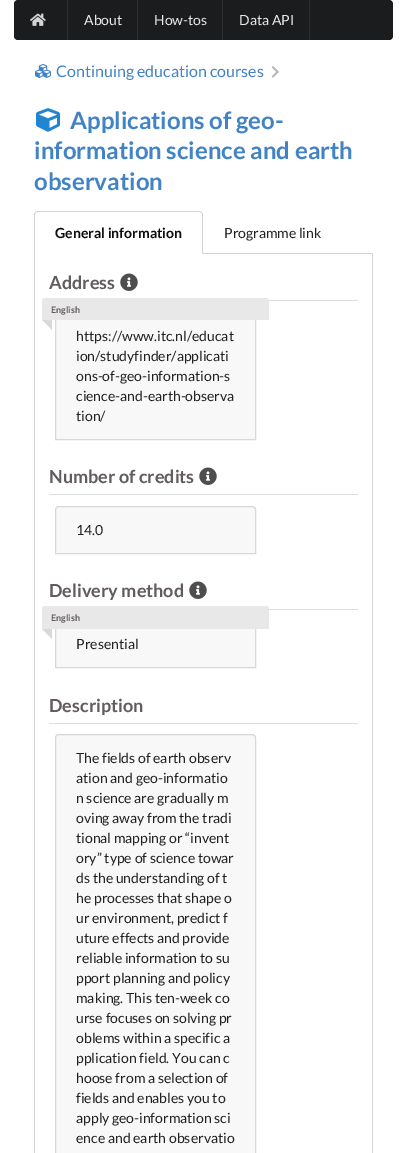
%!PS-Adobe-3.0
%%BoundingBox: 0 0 407 1153
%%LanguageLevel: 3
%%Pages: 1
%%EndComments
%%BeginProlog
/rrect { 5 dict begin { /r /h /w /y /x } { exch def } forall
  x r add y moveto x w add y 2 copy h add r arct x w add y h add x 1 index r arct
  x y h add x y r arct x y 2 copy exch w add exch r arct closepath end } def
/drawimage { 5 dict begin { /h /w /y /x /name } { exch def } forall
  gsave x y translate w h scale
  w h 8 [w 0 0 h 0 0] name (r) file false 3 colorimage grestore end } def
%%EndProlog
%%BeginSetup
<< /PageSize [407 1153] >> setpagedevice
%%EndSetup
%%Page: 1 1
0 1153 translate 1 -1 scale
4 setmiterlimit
1 setgray
0 0 407 1153 rectfill
0.106 0.11 0.114 setrgbcolor
14 0 379 40 4 rrect fill
(images/1.raw) 30 13 16 13 drawimage
0.176 0.18 0.184 setrgbcolor
67 0 1 40 rectfill
137 0 1 40 rectfill
222 0 1 40 rectfill
309 0 1 40 rectfill
(images/2.raw) 35 64 16 14 drawimage
(images/3.raw) 271 66 8 12 drawimage
(images/4.raw) 36 108 24 24 drawimage
0.831 0.831 0.835 setrgbcolor
203 253 170 1 rectfill
newpath 38 211 moveto 199 211 lineto 201 211 203 213 203 215 curveto 203 254 lineto 34 254 lineto 34 215 lineto 34 213 36 211 38 211 curveto closepath 38 212 moveto 199 212 lineto 201 212 202 213 202 215 curveto 202 254 lineto 35 254 lineto 35 215 lineto 35 213 36 212 38 212 curveto closepath eofill
newpath 34 254 moveto 373 254 lineto 373 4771 lineto 373 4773 371 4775 369 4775 curveto 38 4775 lineto 36 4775 34 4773 34 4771 curveto closepath 35 254 moveto 372 254 lineto 372 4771 lineto 372 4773 371 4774 369 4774 curveto 38 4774 lineto 36 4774 35 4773 35 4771 curveto closepath eofill
(images/5.raw) 120 273 18 18 drawimage
0.871 setgray
268 300 90 1 rectfill
0.973 0.973 0.976 setrgbcolor
56 320 199 119 rectfill
0.847 0.847 0.851 setrgbcolor
55.5 312.5 200 127 rectstroke
0.91 setgray
newpath 45 298 moveto 266 298 lineto 267.5 298 269 299.5 269 301 curveto 269 320 lineto 42 320 lineto 42 301 lineto 42 299.5 43.5 298 45 298 curveto closepath fill
0.851 setgray
newpath 52 320 moveto 52 330 lineto 42 320 lineto closepath fill
(images/5.raw) 199 467 18 18 drawimage
0.871 setgray
49 494 309 1 rectfill
0.973 0.973 0.976 setrgbcolor
newpath 59 506.5 moveto 252 506.5 lineto 254 506.5 255.5 508 255.5 510 curveto 255.5 553.5 lineto 55.5 553.5 lineto 55.5 510 lineto 55.5 508 57 506.5 59 506.5 curveto closepath gsave fill grestore
0.847 0.847 0.851 setrgbcolor
stroke
(images/5.raw) 189 581 18 18 drawimage
0.871 setgray
269 609 89 1 rectfill
0.973 0.973 0.976 setrgbcolor
56 629 199 38 rectfill
0.847 0.847 0.851 setrgbcolor
55.5 620.5 200 47 rectstroke
0.91 setgray
newpath 45 606 moveto 266 606 lineto 267.5 606 269 607.5 269 609 curveto 269 629 lineto 42 629 lineto 42 609 lineto 42 607.5 43.5 606 45 606 curveto closepath fill
0.851 setgray
newpath 52 629 moveto 52 639 lineto 42 629 lineto closepath fill
0.871 setgray
49 723 309 1 rectfill
0.973 0.973 0.976 setrgbcolor
newpath 59 734.5 moveto 252 734.5 lineto 254 734.5 255.5 736 255.5 738 curveto 255.5 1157.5 lineto 55.5 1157.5 lineto 55.5 738 lineto 55.5 736 57 734.5 59 734.5 curveto closepath gsave fill grestore
0.847 0.847 0.851 setrgbcolor
stroke
/Lato-Regular [14 0 0 -14 0 0] selectfont
0.91 setgray
84 25 moveto (About) show
154 25 moveto (How-tos) show
239 25 moveto (Data API) show
/Lato-Regular [16 0 0 -16 0 0] selectfont
0.255 0.514 0.769 setrgbcolor
56 77 moveto (Continuing education courses) show
/Lato-Bold [24 0 0 -24 0 0] selectfont
70 129 moveto (Applications of geo-) show
34 159 moveto (information science and earth) show
34 190 moveto (observation) show
/Lato-Bold [14 0 0 -14 0 0] selectfont
0.051 setgray
55 238 moveto (General information) show
/Lato-Regular [14 0 0 -14 0 0] selectfont
0.129 setgray
224 238 moveto (Programme link) show
/Lato-Bold [18 0 0 -18 0 0] selectfont
0.384 0.357 0.373 setrgbcolor
49 289 moveto (Address) show
/Lato-Bold [9 0 0 -9 0 0] selectfont
51 313 moveto (English) show
/Lato-Regular [14 0 0 -14 0 0] selectfont
0.129 setgray
76 341 moveto (https://www.itc.nl/educat) show
76 361 moveto (ion/studyfinder/applicati) show
76 381 moveto (ons-of-geo-information-s) show
76 401 moveto (cience-and-earth-observa) show
76 421 moveto (tion/) show
/Lato-Bold [18 0 0 -18 0 0] selectfont
0.384 0.357 0.373 setrgbcolor
49 483 moveto (Number of credits) show
/Lato-Regular [14 0 0 -14 0 0] selectfont
0.129 setgray
76 535 moveto (14.0) show
/Lato-Bold [18 0 0 -18 0 0] selectfont
0.384 0.357 0.373 setrgbcolor
49 597 moveto (Delivery method) show
/Lato-Bold [9 0 0 -9 0 0] selectfont
51 621 moveto (English) show
/Lato-Regular [14 0 0 -14 0 0] selectfont
0.129 setgray
76 649 moveto (Presential) show
/Lato-Bold [18 0 0 -18 0 0] selectfont
0.384 0.357 0.373 setrgbcolor
49 712 moveto (Description) show
/Lato-Regular [14 0 0 -14 0 0] selectfont
0.129 setgray
76 763 moveto (The fields of earth observ) show
76 783 moveto (ation and geo-informatio) show
76 803 moveto (n science are gradually m) show
76 823 moveto (oving away from the tradi) show
76 843 moveto (tional mapping or “invent) show
76 863 moveto (ory” type of science towar) show
76 883 moveto (ds the understanding of t) show
76 903 moveto (he processes that shape o) show
76 923 moveto (ur environment, predict f) show
76 943 moveto (uture effects and provide) show
76 963 moveto (reliable information to su) show
76 983 moveto (pport planning and policy) show
76 1003 moveto (making. This ten-week co) show
76 1023 moveto (urse focuses on solving pr) show
76 1043 moveto (oblems within a specific a) show
76 1063 moveto (pplication field. You can c) show
76 1083 moveto (hoose from a selection of) show
76 1103 moveto (fields and enables you to) show
76 1123 moveto (apply geo-information sci) show
76 1143 moveto (ence and earth observatio) show
showpage
%%EOF
